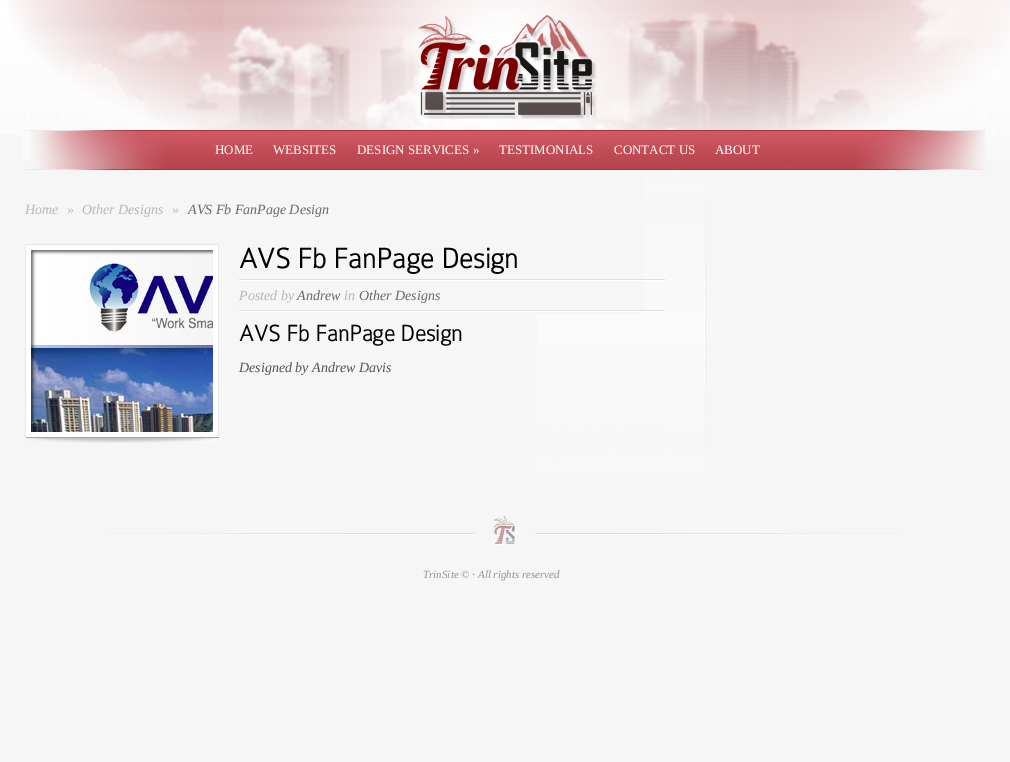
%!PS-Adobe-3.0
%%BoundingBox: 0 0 1010 762
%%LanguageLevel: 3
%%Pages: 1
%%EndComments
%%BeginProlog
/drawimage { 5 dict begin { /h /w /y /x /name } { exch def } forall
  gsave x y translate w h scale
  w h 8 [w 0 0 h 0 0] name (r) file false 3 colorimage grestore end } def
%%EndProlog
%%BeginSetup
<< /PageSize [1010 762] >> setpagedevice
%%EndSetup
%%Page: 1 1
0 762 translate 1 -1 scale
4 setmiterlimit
0.965 setgray
0 0 1010 762 rectfill
(images/1.raw) 0 0 1010 135 drawimage
(images/2.raw) 8 0 1002 130 drawimage
(images/7.raw) 117 11 871 63 drawimage
(images/5.raw) 197 0 797 126 drawimage
(images/4.raw) 62 0 948 130 drawimage
(images/3.raw) 22 0 988 160 drawimage
(images/6.raw) 223 0 569 130 drawimage
(images/8.raw) 418 15 179 104 drawimage
(images/9.raw) 30 130 955 39 drawimage
(images/10.raw) 25 130 959 1 drawimage
(images/11.raw) 25 169 960 1 drawimage
(images/12.raw) 644 170 62 144 drawimage
(images/13.raw) 537 314 169 171 drawimage
1 setgray
26 245 192 192 rectfill
0.906 setgray
25 244 194 1 rectfill
218 244 1 194 rectfill
0.647 setgray
25 437 194 1 rectfill
0.906 setgray
25 244 1 194 rectfill
(images/14.raw) 31 250 182 182 drawimage
(images/15.raw) 31 250 182 182 drawimage
(images/16.raw) 27 438 187 5 drawimage
(images/17.raw) 239 279 426 2 drawimage
(images/17.raw) 239 310 426 2 drawimage
(images/18.raw) 111 515 788 30 drawimage
/LiberationSerif-Regular [13 0 0 -13 0 0] selectfont
1 setgray
215 154 moveto (HOME) show
273 154 moveto (WEBSITES) show
357 154 moveto (DESIGN SERVICES ») show
499 154 moveto (TESTIMONIALS) show
614 154 moveto (CONTACT US) show
715 154 moveto (ABOUT) show
/LiberationSerif-Italic [14 0 0 -14 0 0] selectfont
0.714 setgray
25 214 moveto (Home) show
67 214 moveto (») show
82 214 moveto (Other Designs) show
172 214 moveto (») show
0.408 setgray
188 214 moveto (AVS Fb FanPage Design) show
/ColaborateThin-Bold [30 0 0 -30 0 0] selectfont
0 setgray
239 268 moveto (AVS Fb FanPage Design) show
/LiberationSerif-Italic [14 0 0 -14 0 0] selectfont
0.714 setgray
239 300 moveto (Posted by) show
0.408 setgray
297 300 moveto (Andrew) show
0.714 setgray
344 300 moveto (in) show
0.408 setgray
359 300 moveto (Other Designs) show
/ColaborateThin-Bold [24 0 0 -24 0 0] selectfont
0 setgray
239 341 moveto (AVS Fb FanPage Design) show
/LiberationSerif-Italic [14 0 0 -14 0 0] selectfont
0.322 setgray
239 372 moveto (Designed by Andrew Davis) show
/LiberationSerif-Italic [11 0 0 -11 0 0] selectfont
0.569 setgray
423 578 moveto (TrinSite © · All rights reserved) show
showpage
%%EOF
